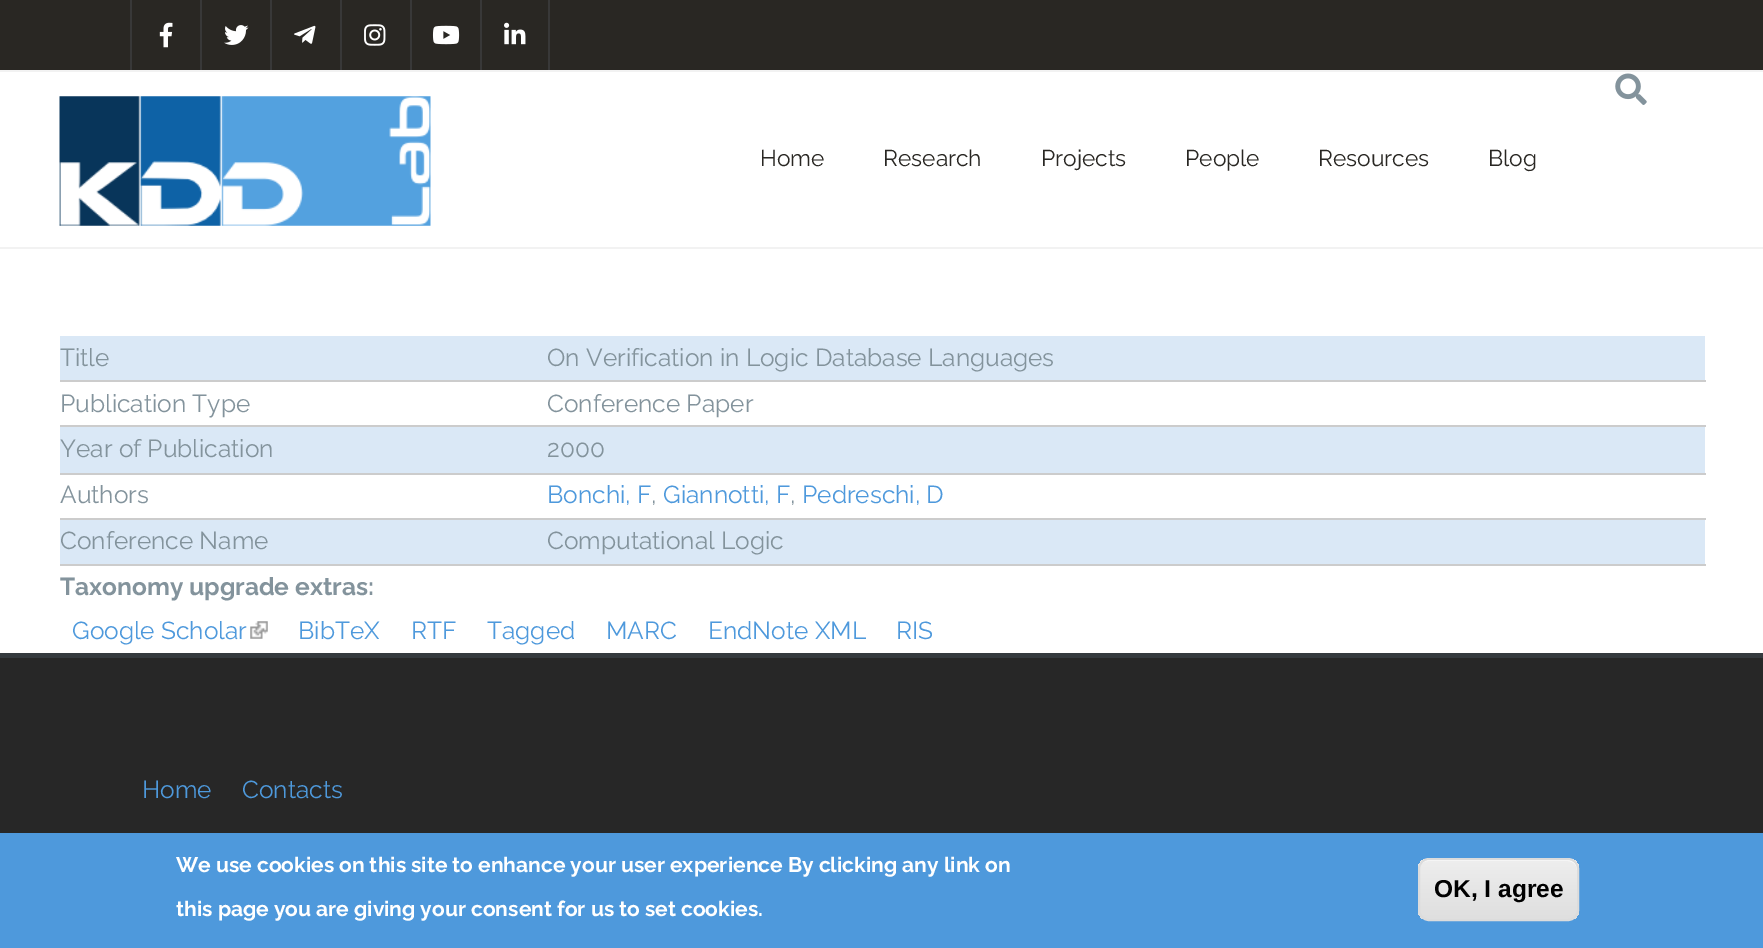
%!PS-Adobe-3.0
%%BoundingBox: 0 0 1763 948
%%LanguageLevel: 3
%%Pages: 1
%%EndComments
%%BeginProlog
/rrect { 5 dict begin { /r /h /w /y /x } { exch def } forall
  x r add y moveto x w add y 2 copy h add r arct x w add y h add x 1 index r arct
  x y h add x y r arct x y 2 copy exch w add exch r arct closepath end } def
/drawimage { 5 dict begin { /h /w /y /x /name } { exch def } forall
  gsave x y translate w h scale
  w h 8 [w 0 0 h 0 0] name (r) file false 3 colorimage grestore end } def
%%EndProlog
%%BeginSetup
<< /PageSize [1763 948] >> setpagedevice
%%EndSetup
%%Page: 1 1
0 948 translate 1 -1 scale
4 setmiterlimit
1 setgray
0 0 1763 948 rectfill
0.161 0.153 0.137 setrgbcolor
0 0 1763 70 rectfill
0.949 setgray
0 70 1763 2 rectfill
0.22 setgray
130 0 2 70 rectfill
(images/1.raw) 159 22 14 26 drawimage
200 0 2 70 rectfill
(images/2.raw) 224 25 25 20 drawimage
270 0 2 70 rectfill
(images/3.raw) 294 25 22 19 drawimage
340 0 2 70 rectfill
(images/4.raw) 364 24 22 22 drawimage
410 0 2 70 rectfill
(images/5.raw) 432 25 28 20 drawimage
548 0 2 70 rectfill
480 0 2 70 rectfill
(images/6.raw) 504 22 22 23 drawimage
0.949 setgray
0 247 1763 2 rectfill
(images/7.raw) 1615 73 32 32 drawimage
(images/8.raw) 59 96 372 130 drawimage
0.855 0.91 0.965 setrgbcolor
60 336 1645 44 rectfill
0.8 setgray
60 380 1646 2 rectfill
60 425 1646 2 rectfill
0.855 0.91 0.965 setrgbcolor
60 427 1645 46 rectfill
0.8 setgray
60 473 1646 2 rectfill
60 518 1646 2 rectfill
0.855 0.91 0.965 setrgbcolor
60 520 1645 44 rectfill
0.8 setgray
60 564 1646 2 rectfill
(images/9.raw) 250 621 18 18 drawimage
0.153 setgray
0 658 1763 175 rectfill
0.208 0.227 0.243 setrgbcolor
0 653 1763 5 rectfill
0.306 0.6 0.863 setrgbcolor
0 833 1763 115 rectfill
gsave
1418 858 161 63 11 rrect clip newpath
gsave newpath 1418 859 moveto 1579 859 lineto 1579 919 lineto 1418 919 lineto closepath clip newpath
<< /ShadingType 2 /ColorSpace /DeviceRGB /Coords [1498 859 1498 919] /Extend [true true] /Function << /FunctionType 3 /Domain [0 1] /Functions [<< /FunctionType 2 /Domain [0 1] /C0 [0.929 0.929 0.929] /C1 [0.929 0.929 0.929] /N 1 >> << /FunctionType 2 /Domain [0 1] /C0 [0.929 0.929 0.929] /C1 [0.875 0.875 0.875] /N 1 >>] /Bounds [0.05] /Encode [0 1 0 1] >> >> shfill grestore
grestore
1 setgray
newpath 1428 861 moveto 1568 861 lineto 1573 861 1577 865 1577 870 curveto 1577 868 lineto 1577 863 1573 859 1568 859 curveto 1428 859 lineto 1423 859 1419 863 1419 868 curveto 1419 870 lineto 1419 865 1423 861 1428 861 curveto closepath fill
0.863 setgray
2 setlinewidth
1419 859 159 61 10 rrect stroke
/Raleway-Regular [22.75 0 0 -22.75 0 0] selectfont
0.161 0.153 0.137 setrgbcolor
760 166 moveto (Home) show
883 166 moveto (Research) show
1041 166 moveto (Projects) show
1185 166 moveto (People) show
1318 166 moveto (Resources) show
1488 166 moveto (Blog) show
/Raleway-Regular [24.5 0 0 -24.5 0 0] selectfont
0.514 0.576 0.612 setrgbcolor
60 366 moveto (Title) show
547 366 moveto (On Verification in Logic Database Languages) show
60 412 moveto (Publication Type) show
547 412 moveto (Conference Paper) show
60 457 moveto (Year of Publication) show
547 457 moveto (2000) show
60 503 moveto (Authors) show
0.306 0.6 0.863 setrgbcolor
547 503 moveto (Bonchi, F) show
0.514 0.576 0.612 setrgbcolor
651 503 moveto (,) show
0.306 0.6 0.863 setrgbcolor
663 503 moveto (Giannotti, F) show
0.514 0.576 0.612 setrgbcolor
790 503 moveto (,) show
0.306 0.6 0.863 setrgbcolor
802 503 moveto (Pedreschi, D) show
0.514 0.576 0.612 setrgbcolor
60 549 moveto (Conference Name) show
547 549 moveto (Computational Logic) show
/Raleway-Bold [24.5 0 0 -24.5 0 0] selectfont
60 595 moveto (Taxonomy upgrade extras:) show
/Raleway-Regular [24.5 0 0 -24.5 0 0] selectfont
0.306 0.6 0.863 setrgbcolor
72 639 moveto (Google Scholar) show
298 639 moveto (BibTeX) show
411 639 moveto (RTF) show
487 639 moveto (Tagged) show
606 639 moveto (MARC) show
708 639 moveto (EndNote XML) show
896 639 moveto (RIS) show
142 798 moveto (Home) show
242 798 moveto (Contacts) show
/Raleway-Bold [21 0 0 -21 0 0] selectfont
1 setgray
176 872 moveto (We use cookies on this site to enhance your user experience By clicking any link on) show
176 916 moveto (this page you are giving your consent for us to set cookies.) show
/LiberationSans-Bold [24.5 0 0 -24.5 0 0] selectfont
0 setgray
1434 897 moveto (OK, I agree) show
showpage
%%EOF
